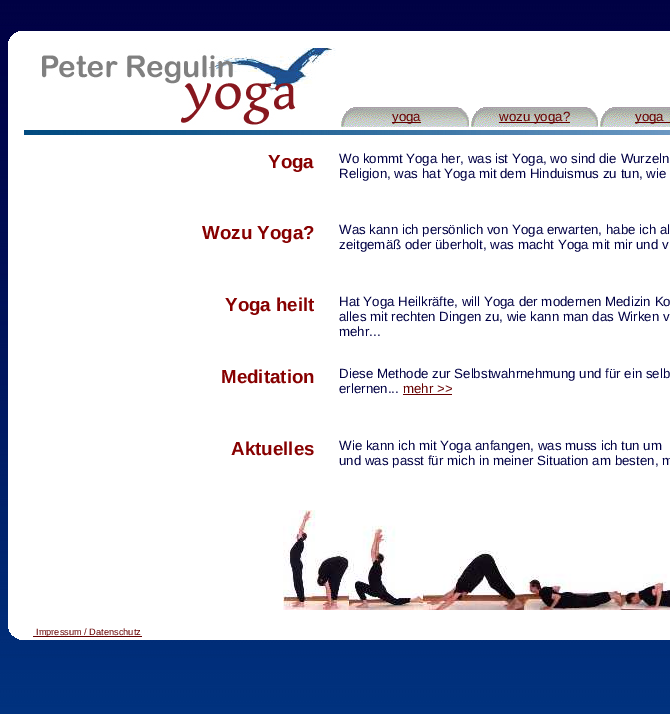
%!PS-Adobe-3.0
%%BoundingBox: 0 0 670 714
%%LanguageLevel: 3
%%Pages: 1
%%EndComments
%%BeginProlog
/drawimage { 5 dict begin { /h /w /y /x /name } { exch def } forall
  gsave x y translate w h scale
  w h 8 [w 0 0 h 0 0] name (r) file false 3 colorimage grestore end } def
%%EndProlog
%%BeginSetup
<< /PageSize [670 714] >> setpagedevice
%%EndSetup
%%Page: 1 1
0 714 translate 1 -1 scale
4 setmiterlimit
1 setgray
0 0 670 714 rectfill
(images/1.raw) 0 0 670 714 drawimage
(images/2.raw) 8 31 15 15 drawimage
23 31 647 15 rectfill
8 46 662 579 rectfill
(images/3.raw) 42 48 294 77 drawimage
(images/4.raw) 341 107 128 20 drawimage
0.4 0 0 setrgbcolor
392 122 29 1 rectfill
(images/5.raw) 471 107 127 20 drawimage
499 122 71 1 rectfill
(images/6.raw) 600 107 70 20 drawimage
635 122 35 1 rectfill
(images/7.raw) 24 130 646 5 drawimage
403 394 49 1 rectfill
(images/8.raw) 283 510 387 100 drawimage
(images/9.raw) 8 625 15 15 drawimage
1 setgray
23 625 647 15 rectfill
0.4 0 0 setrgbcolor
33 636 109 1 rectfill
/LiberationSans-Regular [13.3 0 0 -13.3 0 0] selectfont
392 121 moveto (yoga) show
499 121 moveto (wozu yoga?) show
635 121 moveto (yoga) show
/LiberationSans-Bold [18.75 0 0 -18.75 0 0] selectfont
0.529 0 0 setrgbcolor
268 168 moveto (Yoga) show
/LiberationSans-Regular [13.3 0 0 -13.3 0 0] selectfont
0 0 0.267 setrgbcolor
339 163 moveto (Wo kommt Yoga her, was ist Yoga, wo sind die Wurzeln) show
339 178 moveto (Religion, was hat Yoga mit dem Hinduismus zu tun, wie) show
/LiberationSans-Bold [18.75 0 0 -18.75 0 0] selectfont
0.529 0 0 setrgbcolor
202 239 moveto (Wozu Yoga?) show
/LiberationSans-Regular [13.3 0 0 -13.3 0 0] selectfont
0 0 0.267 setrgbcolor
339 234 moveto (Was kann ich persönlich von Yoga erwarten, habe ich al) show
339 249 moveto (zeitgemäß oder überholt, was macht Yoga mit mir und v) show
/LiberationSans-Bold [18.75 0 0 -18.75 0 0] selectfont
0.529 0 0 setrgbcolor
225 311 moveto (Yoga heilt) show
/LiberationSans-Regular [13.3 0 0 -13.3 0 0] selectfont
0 0 0.267 setrgbcolor
339 306 moveto (Hat Yoga Heilkräfte, will Yoga der modernen Medizin Ko) show
339 321 moveto (alles mit rechten Dingen zu, wie kann man das Wirken v) show
339 336 moveto (mehr...) show
/LiberationSans-Bold [18.75 0 0 -18.75 0 0] selectfont
0.529 0 0 setrgbcolor
221 383 moveto (Meditation) show
/LiberationSans-Regular [13.3 0 0 -13.3 0 0] selectfont
0 0 0.267 setrgbcolor
339 378 moveto (Diese Methode zur Selbstwahrnehmung und für ein selb) show
339 393 moveto (erlernen...) show
0.4 0 0 setrgbcolor
403 393 moveto (mehr >>) show
/LiberationSans-Bold [18.75 0 0 -18.75 0 0] selectfont
0.529 0 0 setrgbcolor
231 455 moveto (Aktuelles) show
/LiberationSans-Regular [13.3 0 0 -13.3 0 0] selectfont
0 0 0.267 setrgbcolor
339 450 moveto (Wie kann ich mit Yoga anfangen, was muss ich tun um) show
339 465 moveto (und was passt für mich in meiner Situation am besten, m) show
/LiberationSans-Regular [9.25 0 0 -9.25 0 0] selectfont
0.4 0 0 setrgbcolor
36 635 moveto (Impressum / Datenschutz) show
showpage
%%EOF
